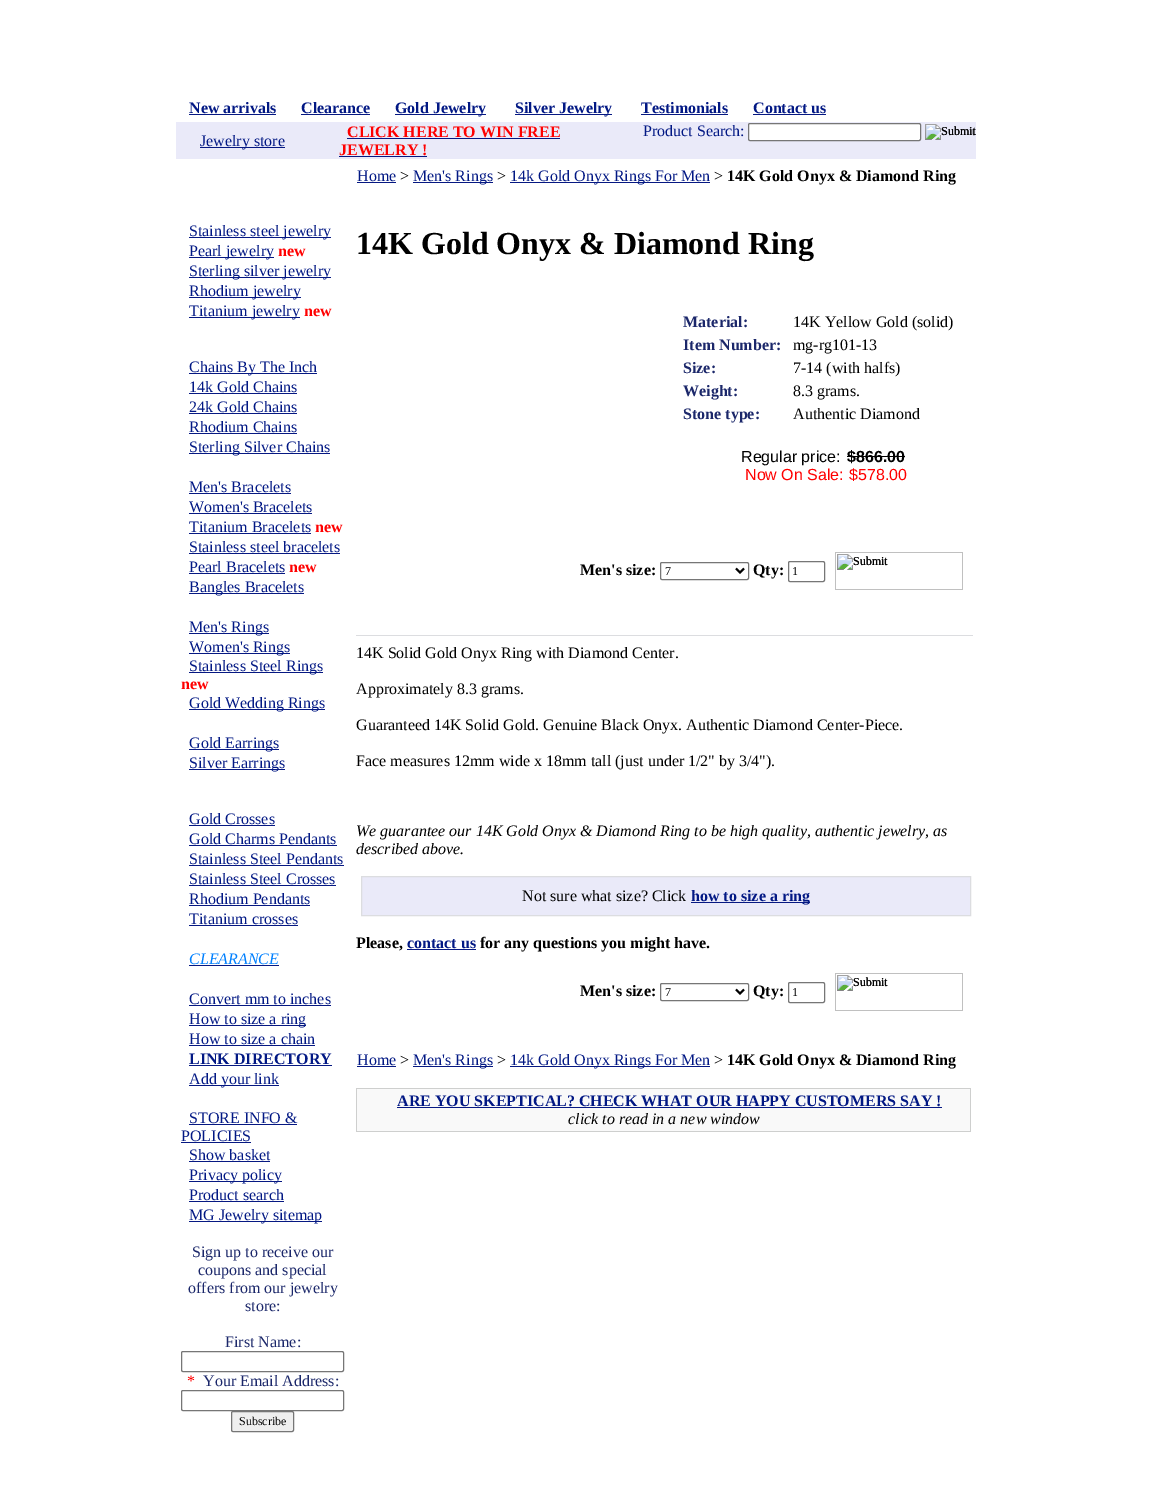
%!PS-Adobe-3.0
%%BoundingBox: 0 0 1152 1487
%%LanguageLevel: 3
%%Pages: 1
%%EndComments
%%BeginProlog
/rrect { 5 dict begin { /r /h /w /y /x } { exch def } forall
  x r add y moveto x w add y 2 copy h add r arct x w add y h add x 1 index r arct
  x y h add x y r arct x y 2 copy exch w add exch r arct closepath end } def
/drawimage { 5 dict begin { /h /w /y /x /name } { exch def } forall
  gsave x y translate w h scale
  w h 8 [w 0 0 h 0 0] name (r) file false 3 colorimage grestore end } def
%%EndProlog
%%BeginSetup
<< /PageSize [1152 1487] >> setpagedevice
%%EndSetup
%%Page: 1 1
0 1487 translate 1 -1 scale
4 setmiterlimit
1 setgray
0 0 1152 1487 rectfill
0.024 0.094 0.51 setrgbcolor
189 114 87 1 rectfill
301 114 69 1 rectfill
395 114 91 1 rectfill
515 114 97 1 rectfill
641 114 87 1 rectfill
753 114 73 1 rectfill
0.918 0.918 0.976 setrgbcolor
176 122 800 37 rectfill
0.024 0.094 0.51 setrgbcolor
200 147 85 1 rectfill
347 138 213 1 rectfill
339 156 88 1 rectfill
1 setgray
748.5 123.5 172 17 1.5 rrect gsave fill grestore
0.463 setgray
stroke
(images/1.raw) 925 124 51 16 drawimage
0.024 0.094 0.51 setrgbcolor
189 237 142 1 rectfill
189 257 85 1 rectfill
189 277 142 1 rectfill
189 297 112 1 rectfill
189 317 111 1 rectfill
189 373 128 1 rectfill
189 393 108 1 rectfill
189 413 108 1 rectfill
189 433 108 1 rectfill
189 453 141 1 rectfill
189 493 102 1 rectfill
189 513 123 1 rectfill
189 533 122 1 rectfill
189 553 151 1 rectfill
189 573 96 1 rectfill
189 593 115 1 rectfill
189 633 80 1 rectfill
189 653 101 1 rectfill
189 672 134 1 rectfill
189 709 136 1 rectfill
189 749 90 1 rectfill
189 769 96 1 rectfill
189 825 86 1 rectfill
189 845 148 1 rectfill
189 865 155 1 rectfill
189 885 147 1 rectfill
189 905 121 1 rectfill
189 925 109 1 rectfill
189 965 90 1 rectfill
189 1005 142 1 rectfill
189 1025 117 1 rectfill
189 1045 126 1 rectfill
189 1065 143 1 rectfill
189 1085 90 1 rectfill
189 1124 108 1 rectfill
181 1142 70 1 rectfill
189 1161 81 1 rectfill
189 1181 93 1 rectfill
189 1201 95 1 rectfill
189 1221 133 1 rectfill
0.463 setgray
181.5 1351.5 162 20 1.5 rrect stroke
181.5 1390.5 162 20 1.5 rrect stroke
0.937 setgray
231.5 1411.5 62 20 1.5 rrect gsave fill grestore
0.463 setgray
stroke
0.024 0.094 0.51 setrgbcolor
357 182 39 1 rectfill
413 182 80 1 rectfill
510 182 200 1 rectfill
0 setgray
847 456 58 1 rectfill
(images/2.raw) 835 552 128 38 drawimage
0.463 setgray
660.5 562.5 88 17 1.5 rrect stroke
0 setgray
2 setlinewidth
newpath 736 568.5 moveto 740 572.5 lineto 744 568.5 lineto stroke
0.463 setgray
1 setlinewidth
788.5 561.5 36 20 1.5 rrect stroke
0.863 0.867 0.878 setrgbcolor
356 635 617 1 rectfill
0.918 0.918 0.976 setrgbcolor
newpath 361.5 876.5 moveto 970.5 876.5 lineto 970.5 915.5 lineto 361.5 915.5 lineto closepath gsave fill grestore
0.863 0.867 0.878 setrgbcolor
stroke
0.024 0.094 0.51 setrgbcolor
691 902 119 1 rectfill
407 949 69 1 rectfill
(images/2.raw) 835 973 128 38 drawimage
0.463 setgray
660.5 983.5 88 17 1.5 rrect stroke
0 setgray
2 setlinewidth
newpath 736 989.5 moveto 740 993.5 lineto 744 989.5 lineto stroke
0.463 setgray
1 setlinewidth
788.5 982.5 36 20 1.5 rrect stroke
0.024 0.094 0.51 setrgbcolor
357 1066 39 1 rectfill
413 1066 80 1 rectfill
510 1066 200 1 rectfill
0.808 0.812 0.808 setrgbcolor
356 1088 615 44 rectfill
0.976 setgray
357 1089 613 42 rectfill
0.024 0.094 0.51 setrgbcolor
397 1107 545 1 rectfill
/LiberationSerif-Bold [16 0 0 -16 0 0] selectfont
0.008 0.094 0.518 setrgbcolor
189 113 moveto (New arrivals) show
301 113 moveto (Clearance) show
395 113 moveto (Gold Jewelry) show
515 113 moveto (Silver Jewelry) show
641 113 moveto (Testimonials) show
753 113 moveto (Contact us) show
/LiberationSerif-Regular [16 0 0 -16 0 0] selectfont
200 146 moveto (Jewelry store) show
/LiberationSerif-Bold [16 0 0 -16 0 0] selectfont
1 0 0 setrgbcolor
347 137 moveto (CLICK HERE TO WIN FREE) show
339 155 moveto (JEWELRY !) show
/LiberationSerif-Regular [16 0 0 -16 0 0] selectfont
0.008 0.094 0.518 setrgbcolor
643 136 moveto (Product Search:) show
/LiberationSerif-Regular [12 0 0 -12 0 0] selectfont
0 setgray
941 135 moveto (Submit) show
/LiberationSerif-Regular [16 0 0 -16 0 0] selectfont
0.008 0.094 0.518 setrgbcolor
189 236 moveto (Stainless steel jewelry) show
189 256 moveto (Pearl jewelry) show
/LiberationSerif-Bold [16 0 0 -16 0 0] selectfont
1 0 0 setrgbcolor
278 256 moveto (new) show
/LiberationSerif-Regular [16 0 0 -16 0 0] selectfont
0.008 0.094 0.518 setrgbcolor
189 276 moveto (Sterling silver jewelry) show
189 296 moveto (Rhodium jewelry) show
189 316 moveto (Titanium jewelry) show
/LiberationSerif-Bold [16 0 0 -16 0 0] selectfont
1 0 0 setrgbcolor
304 316 moveto (new) show
/LiberationSerif-Regular [16 0 0 -16 0 0] selectfont
0.008 0.094 0.518 setrgbcolor
189 372 moveto (Chains By The Inch) show
189 392 moveto (14k Gold Chains) show
189 412 moveto (24k Gold Chains) show
189 432 moveto (Rhodium Chains) show
189 452 moveto (Sterling Silver Chains) show
189 492 moveto (Men's Bracelets) show
189 512 moveto (Women's Bracelets) show
189 532 moveto (Titanium Bracelets) show
/LiberationSerif-Bold [16 0 0 -16 0 0] selectfont
1 0 0 setrgbcolor
315 532 moveto (new) show
/LiberationSerif-Regular [16 0 0 -16 0 0] selectfont
0.008 0.094 0.518 setrgbcolor
189 552 moveto (Stainless steel bracelets) show
189 572 moveto (Pearl Bracelets) show
/LiberationSerif-Bold [16 0 0 -16 0 0] selectfont
1 0 0 setrgbcolor
289 572 moveto (new) show
/LiberationSerif-Regular [16 0 0 -16 0 0] selectfont
0.008 0.094 0.518 setrgbcolor
189 592 moveto (Bangles Bracelets) show
189 632 moveto (Men's Rings) show
189 652 moveto (Women's Rings) show
189 671 moveto (Stainless Steel Rings) show
/LiberationSerif-Bold [16 0 0 -16 0 0] selectfont
1 0 0 setrgbcolor
181 689 moveto (new) show
/LiberationSerif-Regular [16 0 0 -16 0 0] selectfont
0.008 0.094 0.518 setrgbcolor
189 708 moveto (Gold Wedding Rings) show
189 748 moveto (Gold Earrings) show
189 768 moveto (Silver Earrings) show
189 824 moveto (Gold Crosses) show
189 844 moveto (Gold Charms Pendants) show
189 864 moveto (Stainless Steel Pendants) show
189 884 moveto (Stainless Steel Crosses) show
189 904 moveto (Rhodium Pendants) show
189 924 moveto (Titanium crosses) show
/LiberationSerif-Italic [16 0 0 -16 0 0] selectfont
0 0.502 1 setrgbcolor
189 964 moveto (CLEARANCE) show
/LiberationSerif-Regular [16 0 0 -16 0 0] selectfont
0.008 0.094 0.518 setrgbcolor
189 1004 moveto (Convert mm to inches) show
189 1024 moveto (How to size a ring) show
189 1044 moveto (How to size a chain) show
/LiberationSerif-Bold [16 0 0 -16 0 0] selectfont
189 1064 moveto (LINK DIRECTORY) show
/LiberationSerif-Regular [16 0 0 -16 0 0] selectfont
189 1084 moveto (Add your link) show
189 1123 moveto (STORE INFO &) show
181 1141 moveto (POLICIES) show
189 1160 moveto (Show basket) show
189 1180 moveto (Privacy policy) show
189 1200 moveto (Product search) show
189 1220 moveto (MG Jewelry sitemap) show
0.106 0.153 0.416 setrgbcolor
192 1257 moveto (Sign up to receive our) show
198 1275 moveto (coupons and special) show
188 1293 moveto (offers from our jewelry) show
245 1311 moveto (store:) show
225 1347 moveto (First Name:) show
1 0 0 setrgbcolor
187 1386 moveto (*) show
0.106 0.153 0.416 setrgbcolor
203 1386 moveto (Your Email Address:) show
/LiberationSerif-Regular [12 0 0 -12 0 0] selectfont
0 setgray
239 1425 moveto (Subscribe) show
/LiberationSerif-Regular [16 0 0 -16 0 0] selectfont
0.008 0.094 0.518 setrgbcolor
357 181 moveto (Home) show
0 setgray
400 181 moveto (>) show
0.008 0.094 0.518 setrgbcolor
413 181 moveto (Men's Rings) show
0 setgray
497 181 moveto (>) show
0.008 0.094 0.518 setrgbcolor
510 181 moveto (14k Gold Onyx Rings For Men) show
0 setgray
714 181 moveto (>) show
/LiberationSerif-Bold [16 0 0 -16 0 0] selectfont
727 181 moveto (14K Gold Onyx & Diamond Ring) show
/LiberationSerif-Bold [32 0 0 -32 0 0] selectfont
356 254 moveto (14K Gold Onyx & Diamond Ring) show
/LiberationSerif-Bold [16 0 0 -16 0 0] selectfont
0.106 0.153 0.416 setrgbcolor
683 327 moveto (Material:) show
/LiberationSerif-Regular [16 0 0 -16 0 0] selectfont
0 setgray
793 327 moveto (14K Yellow Gold \(solid\)) show
/LiberationSerif-Bold [16 0 0 -16 0 0] selectfont
0.106 0.153 0.416 setrgbcolor
683 350 moveto (Item Number:) show
/LiberationSerif-Regular [16 0 0 -16 0 0] selectfont
0 setgray
793 350 moveto (mg-rg101-13) show
/LiberationSerif-Bold [16 0 0 -16 0 0] selectfont
0.106 0.153 0.416 setrgbcolor
683 373 moveto (Size:) show
/LiberationSerif-Regular [16 0 0 -16 0 0] selectfont
0 setgray
793 373 moveto (7-14 \(with halfs\)) show
/LiberationSerif-Bold [16 0 0 -16 0 0] selectfont
0.106 0.153 0.416 setrgbcolor
683 396 moveto (Weight:) show
/LiberationSerif-Regular [16 0 0 -16 0 0] selectfont
0 setgray
793 396 moveto (8.3 grams.) show
/LiberationSerif-Bold [16 0 0 -16 0 0] selectfont
0.106 0.153 0.416 setrgbcolor
683 419 moveto (Stone type:) show
/LiberationSerif-Regular [16 0 0 -16 0 0] selectfont
0 setgray
793 419 moveto (Authentic Diamond) show
/LiberationSans-Regular [16 0 0 -16 0 0] selectfont
741 462 moveto (Regular price:) show
/LiberationSans-Bold [16 0 0 -16 0 0] selectfont
847 462 moveto ($866.00) show
/LiberationSans-Regular [16 0 0 -16 0 0] selectfont
1 0 0 setrgbcolor
745 480 moveto (Now On Sale:) show
849 480 moveto ($578.00) show
/LiberationSerif-Regular [12 0 0 -12 0 0] selectfont
0 setgray
853 565 moveto (Submit) show
/LiberationSerif-Bold [16 0 0 -16 0 0] selectfont
580 575 moveto (Men's size:) show
/LiberationSerif-Regular [12 0 0 -12 0 0] selectfont
665 575 moveto (7) show
/LiberationSerif-Bold [16 0 0 -16 0 0] selectfont
753 575 moveto (Qty:) show
/LiberationSerif-Regular [12 0 0 -12 0 0] selectfont
792 575 moveto (1) show
/LiberationSerif-Regular [16 0 0 -16 0 0] selectfont
356 658 moveto (14K Solid Gold Onyx Ring with Diamond Center.) show
356 694 moveto (Approximately 8.3 grams.) show
356 730 moveto (Guaranteed 14K Solid Gold. Genuine Black Onyx. Authentic Diamond Center-Piece.) show
356 766 moveto (Face measures 12mm wide x 18mm tall \(just under 1/2" by 3/4"\).) show
/LiberationSerif-Italic [16 0 0 -16 0 0] selectfont
356 836 moveto (We guarantee our 14K Gold Onyx & Diamond Ring to be high quality, authentic jewelry, as) show
356 854 moveto (described above.) show
/LiberationSerif-Regular [16 0 0 -16 0 0] selectfont
522 901 moveto (Not sure what size? Click) show
/LiberationSerif-Bold [16 0 0 -16 0 0] selectfont
0.008 0.094 0.518 setrgbcolor
691 901 moveto (how to size a ring) show
0 setgray
356 948 moveto (Please,) show
0.008 0.094 0.518 setrgbcolor
407 948 moveto (contact us) show
0 setgray
480 948 moveto (for any questions you might have.) show
/LiberationSerif-Regular [12 0 0 -12 0 0] selectfont
853 986 moveto (Submit) show
/LiberationSerif-Bold [16 0 0 -16 0 0] selectfont
580 996 moveto (Men's size:) show
/LiberationSerif-Regular [12 0 0 -12 0 0] selectfont
665 996 moveto (7) show
/LiberationSerif-Bold [16 0 0 -16 0 0] selectfont
753 996 moveto (Qty:) show
/LiberationSerif-Regular [12 0 0 -12 0 0] selectfont
792 996 moveto (1) show
/LiberationSerif-Regular [16 0 0 -16 0 0] selectfont
0.008 0.094 0.518 setrgbcolor
357 1065 moveto (Home) show
0 setgray
400 1065 moveto (>) show
0.008 0.094 0.518 setrgbcolor
413 1065 moveto (Men's Rings) show
0 setgray
497 1065 moveto (>) show
0.008 0.094 0.518 setrgbcolor
510 1065 moveto (14k Gold Onyx Rings For Men) show
0 setgray
714 1065 moveto (>) show
/LiberationSerif-Bold [16 0 0 -16 0 0] selectfont
727 1065 moveto (14K Gold Onyx & Diamond Ring) show
0.008 0.094 0.518 setrgbcolor
397 1106 moveto (ARE YOU SKEPTICAL? CHECK WHAT OUR HAPPY CUSTOMERS SAY !) show
/LiberationSerif-Italic [16 0 0 -16 0 0] selectfont
0 setgray
568 1124 moveto (click to read in a new window) show
showpage
%%EOF
